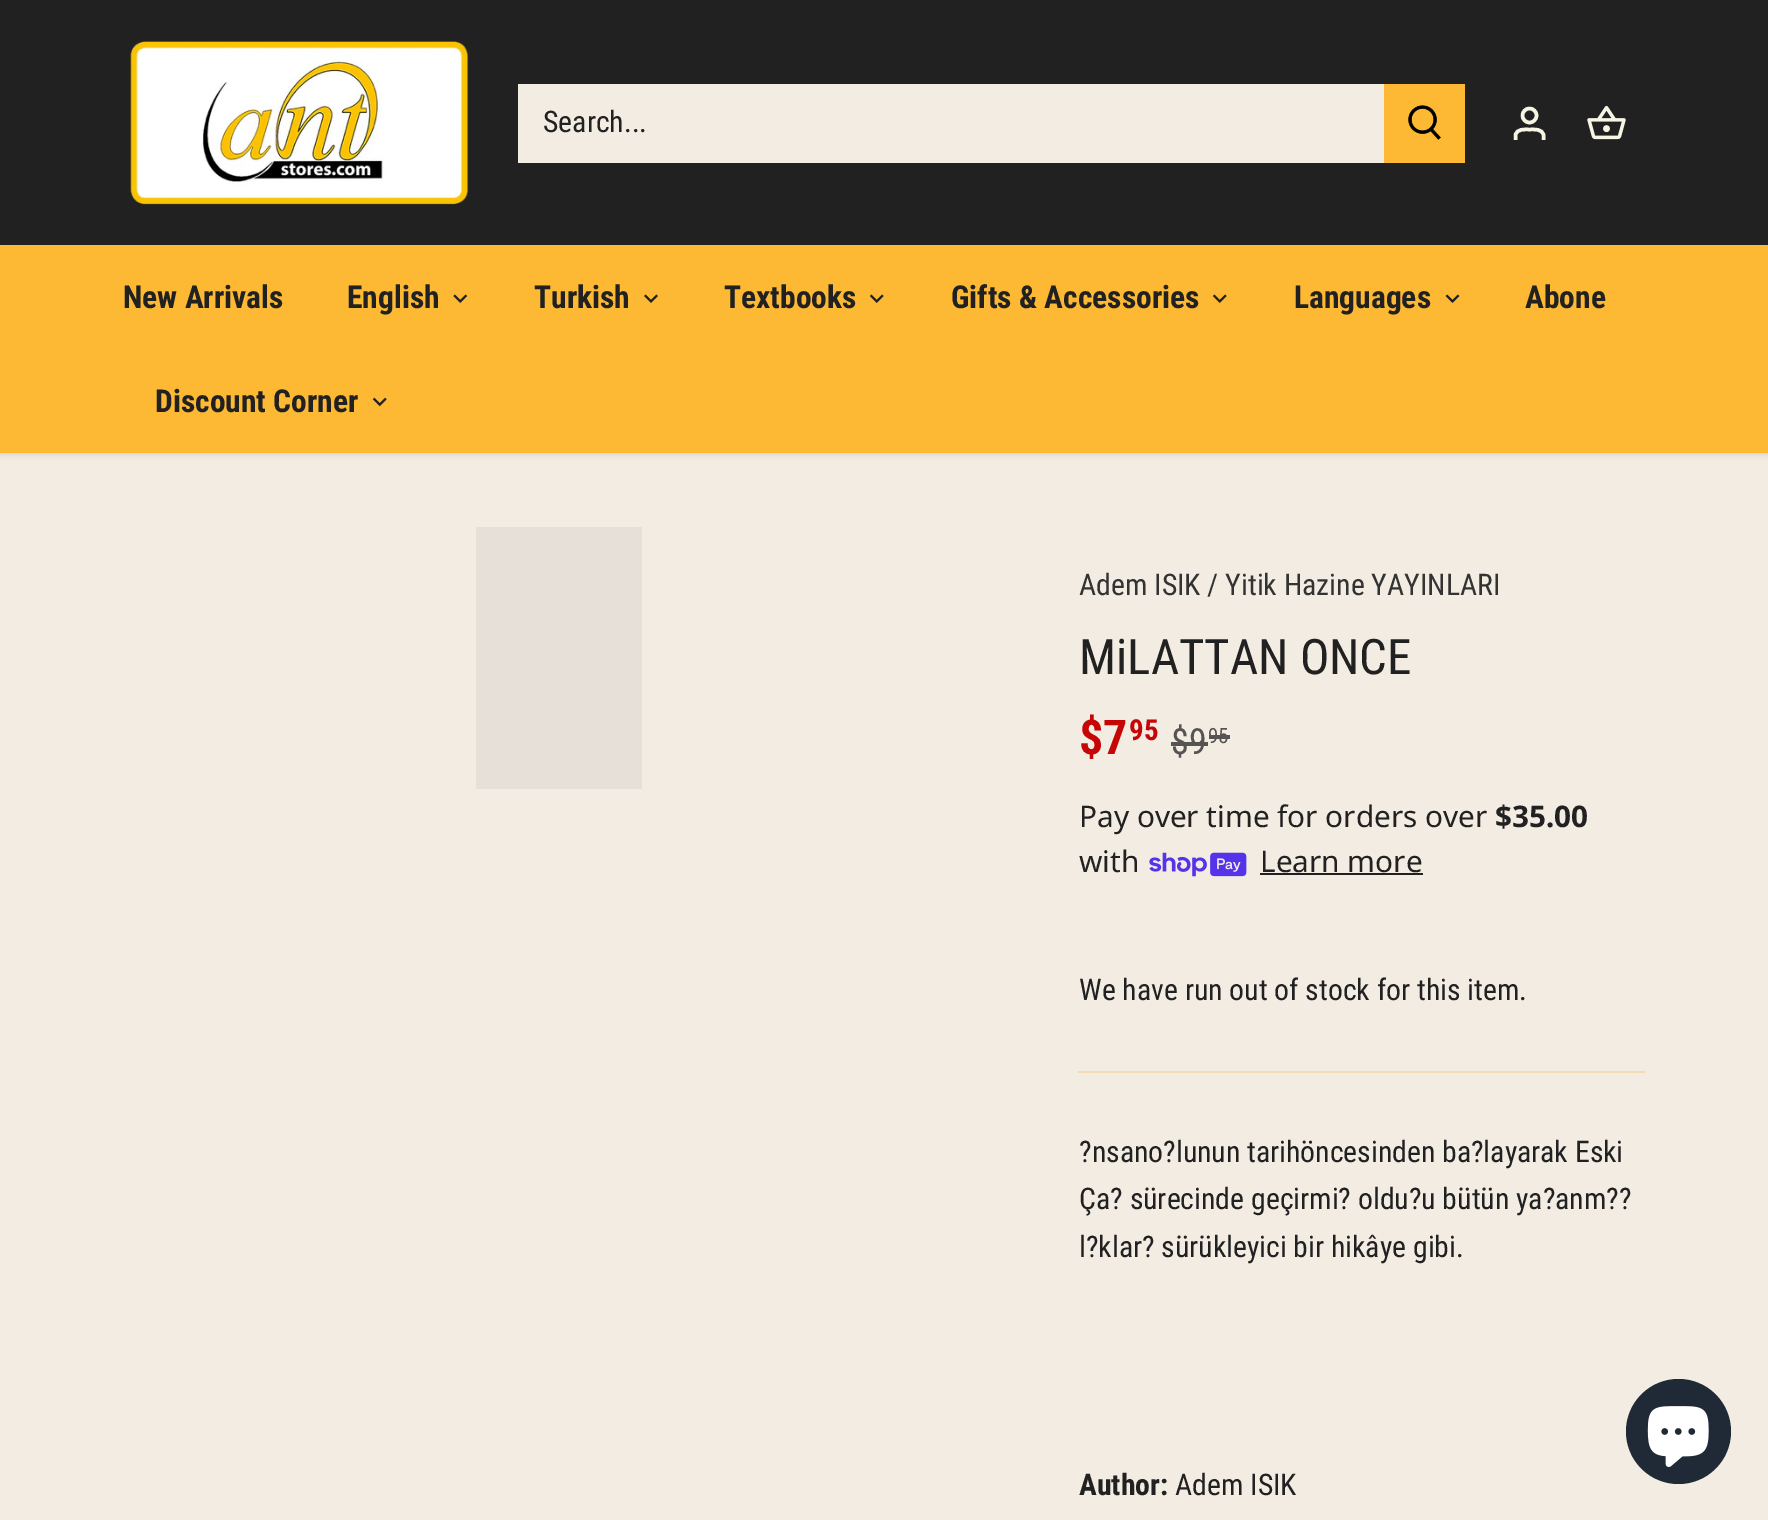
%!PS-Adobe-3.0
%%BoundingBox: 0 0 1768 1520
%%LanguageLevel: 3
%%Pages: 1
%%EndComments
%%BeginProlog
/setalpha { dup .setfillconstantalpha .setstrokeconstantalpha } def
/rrect { 5 dict begin { /r /h /w /y /x } { exch def } forall
  x r add y moveto x w add y 2 copy h add r arct x w add y h add x 1 index r arct
  x y h add x y r arct x y 2 copy exch w add exch r arct closepath end } def
/softshadow { 12 dict begin { /a /b /q /h /w /y /x } { exch def } forall gsave /was 0 def
  9 -2 -9 { dup b mul 4 div /e exch def 1 sub .425 mul 2.718 exch exp 1 add a .99 .min exch div /now exch def
    1 1 now sub 1 was sub div sub setalpha /was now def
    w h .min e 2 mul add 0 gt { x e sub y e sub w e 2 mul add h e 2 mul add
      q e add b .6 mul add w h .min 2 div e add .min 0 .max rrect fill } if } for grestore end } def
/drawimage { 5 dict begin { /h /w /y /x /name } { exch def } forall
  gsave x y translate w h scale
  w h 8 [w 0 0 h 0 0] name (r) file false 3 colorimage grestore end } def
%%EndProlog
%%BeginSetup
<< /PageSize [1768 1520] /PageUsesTransparency true >> setpagedevice
%%EndSetup
%%Page: 1 1
0 .pushpdf14devicefilter
0 1520 translate 1 -1 scale
4 setmiterlimit
0.949 0.925 0.89 setrgbcolor
0 0 1768 1520 rectfill
0 setgray
-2 -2 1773 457 0 2.5 0.08 softshadow
0.992 0.725 0.2 setrgbcolor
0 245 1768 208 rectfill
0.129 setgray
0 0 1768 245 rectfill
(images/1.raw) 130 41 339 164 drawimage
0.949 0.925 0.89 setrgbcolor
518 84 866 79 rectfill
0.992 0.725 0.2 setrgbcolor
1384 84 81 79 rectfill
(images/2.raw) 1408 105 33 35 drawimage
0.969 0.961 0.894 setrgbcolor
3.5 setlinewidth
newpath 1529.5 115.5 7 0 360 arc closepath stroke
newpath 1543.5 140 moveto 1543.5 135 lineto 1542 128.5 1534.5 129.5 1529.5 129.5 curveto 1524.5 129.5 1517 128.5 1515.5 135 curveto 1515.5 140 lineto stroke
(images/3.raw) 1587 105 39 35 drawimage
(images/4.raw) 453 294 15 9 drawimage
(images/5.raw) 644 294 14 9 drawimage
(images/6.raw) 869 294 15 9 drawimage
(images/6.raw) 1212 294 15 9 drawimage
(images/7.raw) 1445 294 15 9 drawimage
(images/8.raw) 372 397 15 10 drawimage
0.902 0.878 0.847 setrgbcolor
476 527 166 262 rectfill
0.333 0.329 0.322 setrgbcolor
1171 742 37 4 rectfill
1209 735 21 4 rectfill
(images/9.raw) 1149 852 98 25 drawimage
0.129 setgray
1260 873 163 2 rectfill
0.945 0.859 0.69 setrgbcolor
1078 1071 567 2 rectfill
0.125 0.165 0.212 setrgbcolor
newpath 1678.5 1431.5 52.5 0 360 arc closepath fill
(images/10.raw) 1647 1406 62 61 drawimage
/RobotoCondensed-Regular [29.75 0 0 -29.75 0 0] selectfont
0.129 setgray
543 132 moveto (Search...) show
/RobotoCondensed-Bold [31.5 0 0 -31.5 0 0] selectfont
123 308 moveto (New Arrivals) show
347 308 moveto (English) show
534 308 moveto (Turkish) show
724 308 moveto (Textbooks) show
951 308 moveto (Gifts & Accessories) show
1294 308 moveto (Languages) show
1525 308 moveto (Abone) show
155 412 moveto (Discount Corner) show
/RobotoCondensed-Regular [29.75 0 0 -29.75 0 0] selectfont
0.2 setgray
1079 595 moveto (Adem ISIK / Yitik Hazine YAYINLARI) show
/RobotoCondensed-Regular [49 0 0 -49 0 0] selectfont
0.129 setgray
1079 674 moveto (MiLATTAN ONCE) show
/RobotoCondensed-Bold [48 0 0 -48 0 0] selectfont
0.776 0.024 0.024 setrgbcolor
1079 754 moveto ($7) show
/RobotoCondensed-Bold [29 0 0 -29 0 0] selectfont
1129 740 moveto (95) show
/RobotoCondensed-Regular [36 0 0 -36 0 0] selectfont
0.333 0.329 0.322 setrgbcolor
1171 754 moveto ($9) show
/RobotoCondensed-Regular [21 0 0 -21 0 0] selectfont
1208 743 moveto (95) show
/NotoSans-Regular [29.75 0 0 -29.75 0 0] selectfont
0.129 setgray
1079 827 moveto (Pay over time for orders over) show
/NotoSans-Bold [29.75 0 0 -29.75 0 0] selectfont
1495 827 moveto ($35.00) show
/NotoSans-Regular [29.75 0 0 -29.75 0 0] selectfont
1079 872 moveto (with) show
1260 872 moveto (Learn more) show
/RobotoCondensed-Regular [29.75 0 0 -29.75 0 0] selectfont
1079 1000 moveto (We have run out of stock for this item.) show
1079 1162 moveto (?nsano?lunun tarihöncesinden ba?layarak Eski) show
1079 1209 moveto (Ça? sürecinde geçirmi? oldu?u bütün ya?anm??) show
1079 1257 moveto (l?klar? sürükleyici bir hikâye gibi.) show
/RobotoCondensed-Bold [29.75 0 0 -29.75 0 0] selectfont
1079 1495 moveto (Author:) show
/RobotoCondensed-Regular [29.75 0 0 -29.75 0 0] selectfont
1175 1495 moveto (Adem ISIK) show
.poppdf14devicefilter showpage
%%EOF
